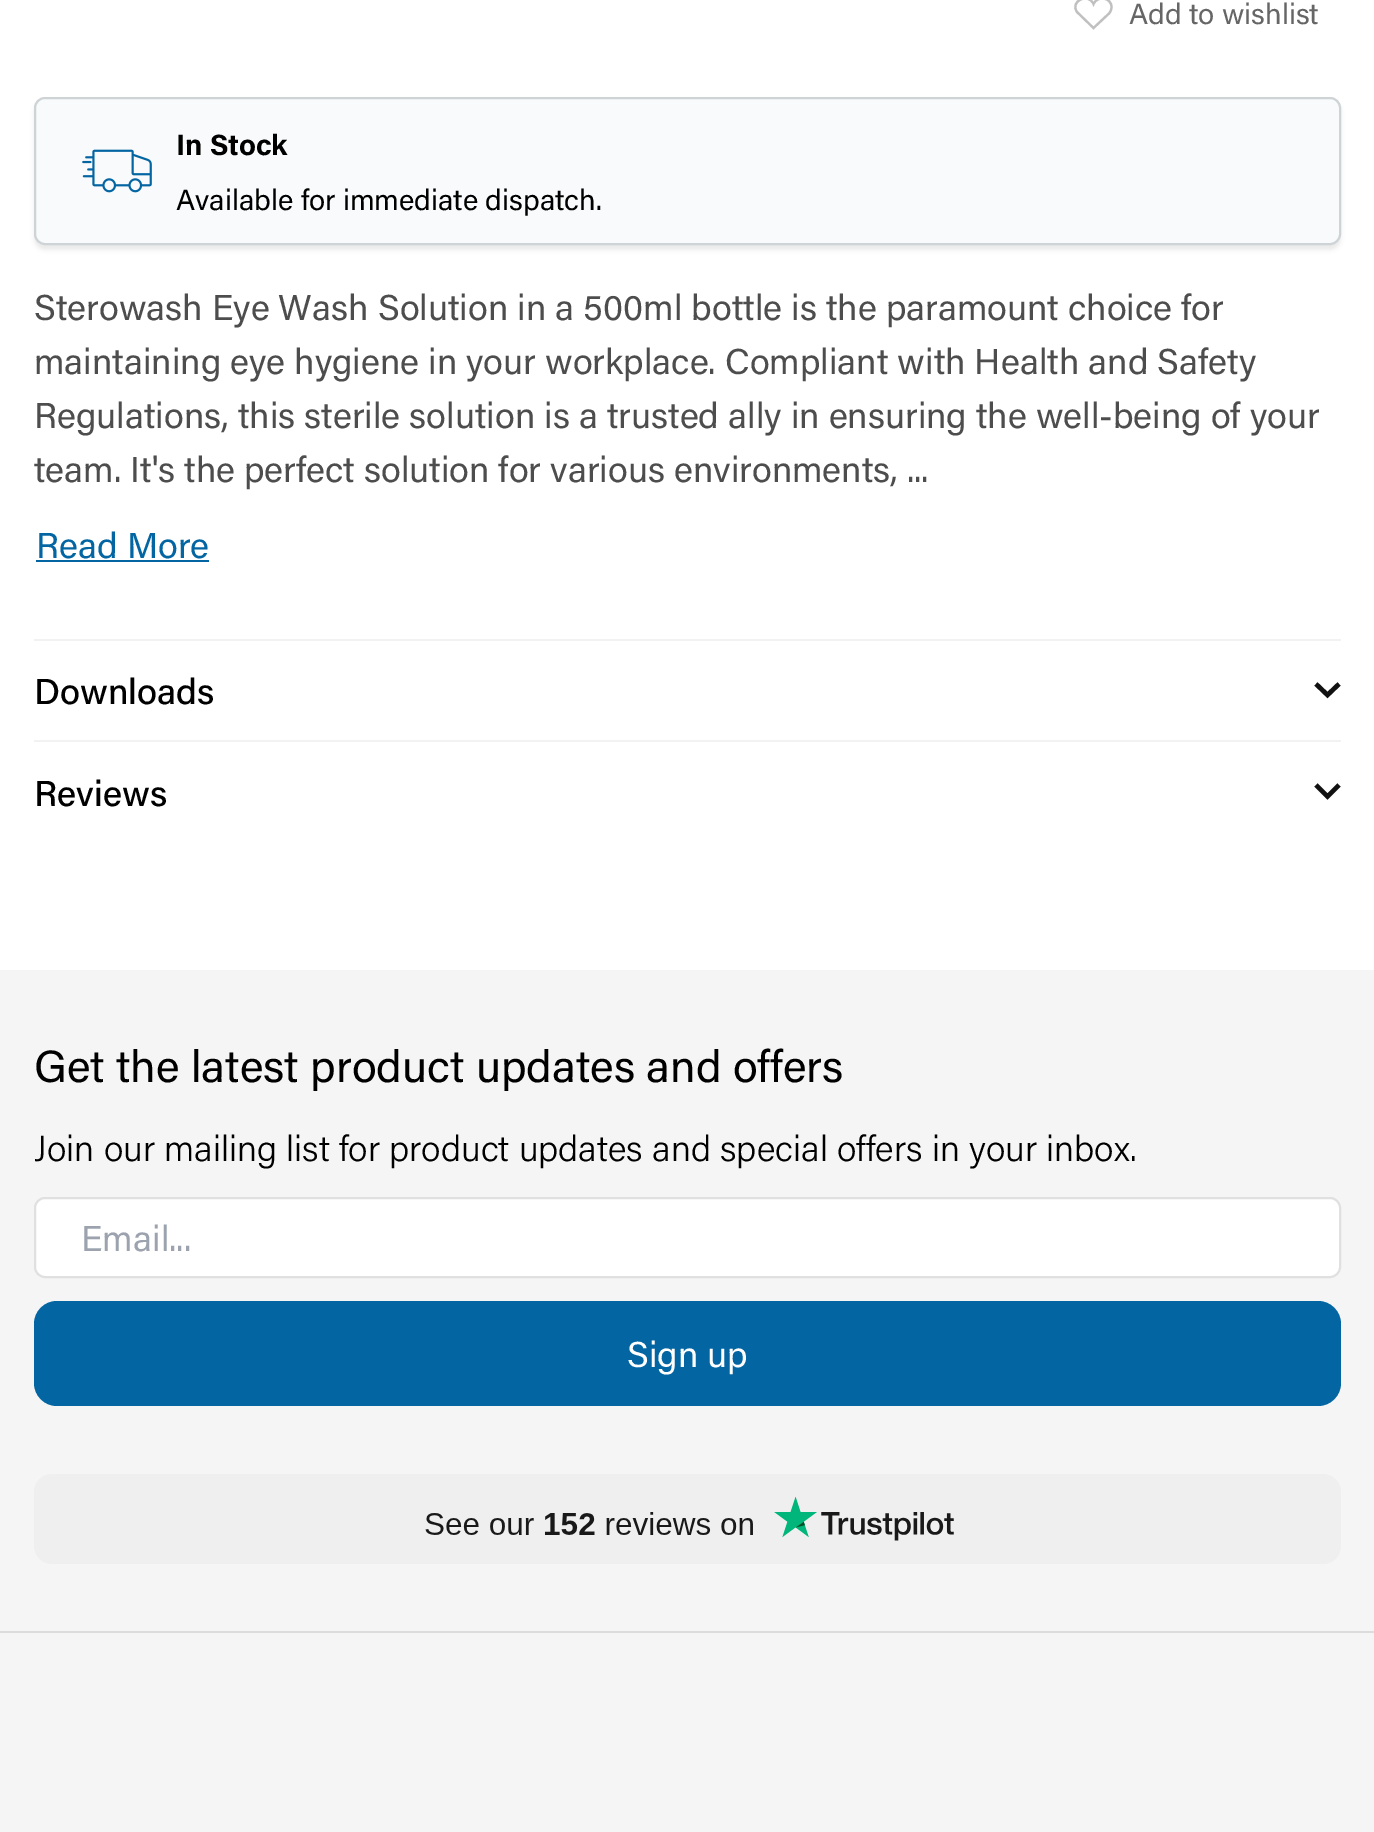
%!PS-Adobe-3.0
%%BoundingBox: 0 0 1374 1832
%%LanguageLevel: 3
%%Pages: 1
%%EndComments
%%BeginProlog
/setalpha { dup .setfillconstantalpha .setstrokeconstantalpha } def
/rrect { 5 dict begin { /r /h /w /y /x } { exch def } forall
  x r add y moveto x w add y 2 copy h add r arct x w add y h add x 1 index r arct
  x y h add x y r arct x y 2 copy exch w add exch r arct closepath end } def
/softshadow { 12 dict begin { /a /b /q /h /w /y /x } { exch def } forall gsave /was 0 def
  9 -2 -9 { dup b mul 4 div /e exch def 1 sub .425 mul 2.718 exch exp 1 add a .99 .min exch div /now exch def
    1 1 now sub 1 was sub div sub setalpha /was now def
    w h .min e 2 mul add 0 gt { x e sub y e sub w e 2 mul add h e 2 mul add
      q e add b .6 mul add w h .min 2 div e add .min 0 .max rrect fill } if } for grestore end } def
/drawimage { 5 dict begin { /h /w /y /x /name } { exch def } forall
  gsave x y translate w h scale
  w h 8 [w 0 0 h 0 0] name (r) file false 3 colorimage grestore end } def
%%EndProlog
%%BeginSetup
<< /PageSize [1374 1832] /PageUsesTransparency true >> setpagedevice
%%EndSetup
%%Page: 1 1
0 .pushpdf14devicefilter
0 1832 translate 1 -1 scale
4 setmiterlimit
1 setgray
0 0 1374 1832 rectfill
0.753 setgray
2.2 setlinewidth
newpath 1109 13.5 moveto 1110.5 12 1111.5 9.5 1111.5 7 curveto 1111.5 -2.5 1097.5 -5 1093.5 4 curveto 1088 -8 1069.5 1.5 1077 12 curveto 1093.5 28 lineto closepath stroke
0 setgray
34 101 1307 149 11 2 0.07 softshadow
0.973 0.98 0.984 setrgbcolor
35 98 1305 146 10 rrect gsave fill grestore
0.808 0.827 0.839 setrgbcolor
2 setlinewidth
stroke
(images/1.raw) 82 149 70 44 drawimage
0.012 0.396 0.635 setrgbcolor
36 560 173 2 rectfill
0.949 setgray
34 639 1307 2 rectfill
0.067 setgray
4.5 setlinewidth
newpath 1339 684 moveto 1327.5 695 lineto 1316 684 lineto stroke
0.949 setgray
34 740 1307 2 rectfill
0.067 setgray
newpath 1339 785 moveto 1327.5 796.5 lineto 1316 785 lineto stroke
0.961 setgray
0 970 1374 862 rectfill
1 setgray
35 1198 1305 79 10 rrect gsave fill grestore
0.878 setgray
2 setlinewidth
stroke
0.012 0.396 0.635 setrgbcolor
34 1301 1307 105 23 rrect fill
0.937 setgray
34 1474 1307 90 18 rrect fill
(images/2.raw) 425 1496 529 45 drawimage
0.863 setgray
0 1631 1374 2 rectfill
/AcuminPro-Regular [29.25 0 0 -29.25 0 0] selectfont
0.4 setgray
1129 24 moveto (Add to wishlist) show
/AcuminPro-Bold [29.25 0 0 -29.25 0 0] selectfont
0 setgray
176 155 moveto (In Stock) show
/AcuminPro-Regular [29.25 0 0 -29.25 0 0] selectfont
176 210 moveto (Available for immediate dispatch.) show
/AcuminPro-Regular [36 0 0 -36 0 0] selectfont
0.302 setgray
34 320 moveto (Sterowash Eye Wash Solution in a 500ml bottle is the paramount choice for) show
34 374 moveto (maintaining eye hygiene in your workplace. Compliant with Health and Safety) show
34 428 moveto (Regulations, this sterile solution is a trusted ally in ensuring the well-being of your) show
34 482 moveto (team. It's the perfect solution for various environments, ...) show
0.012 0.396 0.635 setrgbcolor
36 558 moveto (Read More) show
/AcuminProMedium-Medium [36 0 0 -36 0 0] selectfont
0 setgray
34 704 moveto (Downloads) show
34 806 moveto (Reviews) show
/AcuminPro-Regular [45 0 0 -45 0 0] selectfont
34 1082 moveto (Get the latest product updates and offers) show
/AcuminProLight-Light [36 0 0 -36 0 0] selectfont
34 1161 moveto (Join our mailing list for product updates and special offers in your inbox.) show
/AcuminPro-Regular [36 0 0 -36 0 0] selectfont
0.612 0.639 0.686 setrgbcolor
81 1251 moveto (Email...) show
1 setgray
627 1367 moveto (Sign up) show
.poppdf14devicefilter showpage
%%EOF
